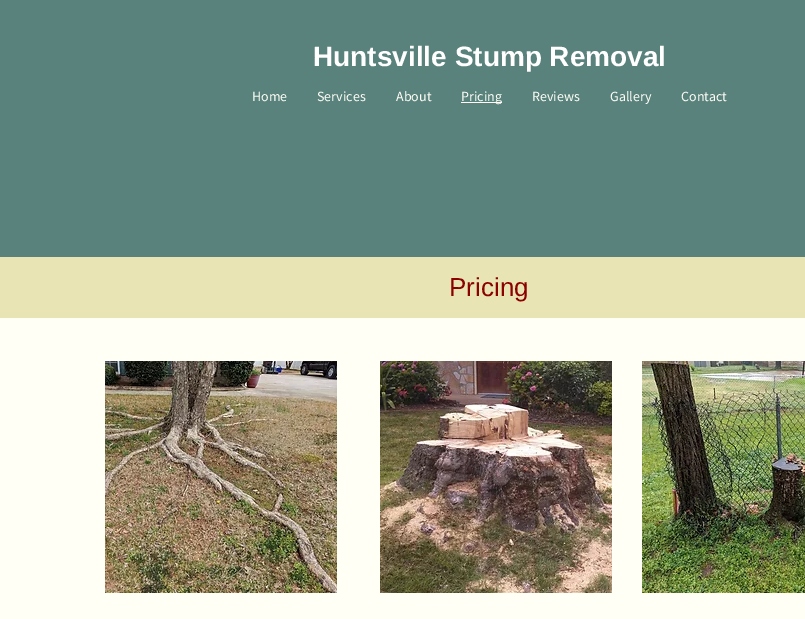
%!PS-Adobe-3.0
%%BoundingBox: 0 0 805 619
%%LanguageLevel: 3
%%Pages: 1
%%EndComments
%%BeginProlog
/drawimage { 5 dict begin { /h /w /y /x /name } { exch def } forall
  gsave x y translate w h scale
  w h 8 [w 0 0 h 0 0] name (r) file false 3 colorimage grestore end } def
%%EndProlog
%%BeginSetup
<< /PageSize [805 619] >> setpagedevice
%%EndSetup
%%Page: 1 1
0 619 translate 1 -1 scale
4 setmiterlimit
0.349 0.51 0.486 setrgbcolor
0 0 805 619 rectfill
1 1 0.965 setrgbcolor
461 102 41 1 rectfill
0.914 0.894 0.706 setrgbcolor
0 257 805 61 rectfill
1 1 0.965 setrgbcolor
0 318 805 301 rectfill
(images/1.raw) 105 361 232 232 drawimage
(images/2.raw) 380 361 232 232 drawimage
(images/3.raw) 642 361 163 232 drawimage
/LiberationSans-Bold [28 0 0 -28 0 0] selectfont
1 setgray
313 66 moveto (Huntsville Stump Removal) show
/SourceSansPro-Regular [14 0 0 -14 0 0] selectfont
1 1 0.965 setrgbcolor
252 101 moveto (Home) show
317 101 moveto (Services) show
396 101 moveto (About) show
461 101 moveto (Pricing) show
532 101 moveto (Reviews) show
610 101 moveto (Gallery) show
681 101 moveto (Contact) show
/LiberationSans-Regular [26 0 0 -26 0 0] selectfont
0.545 0 0 setrgbcolor
449 296 moveto (Pricing) show
showpage
%%EOF
